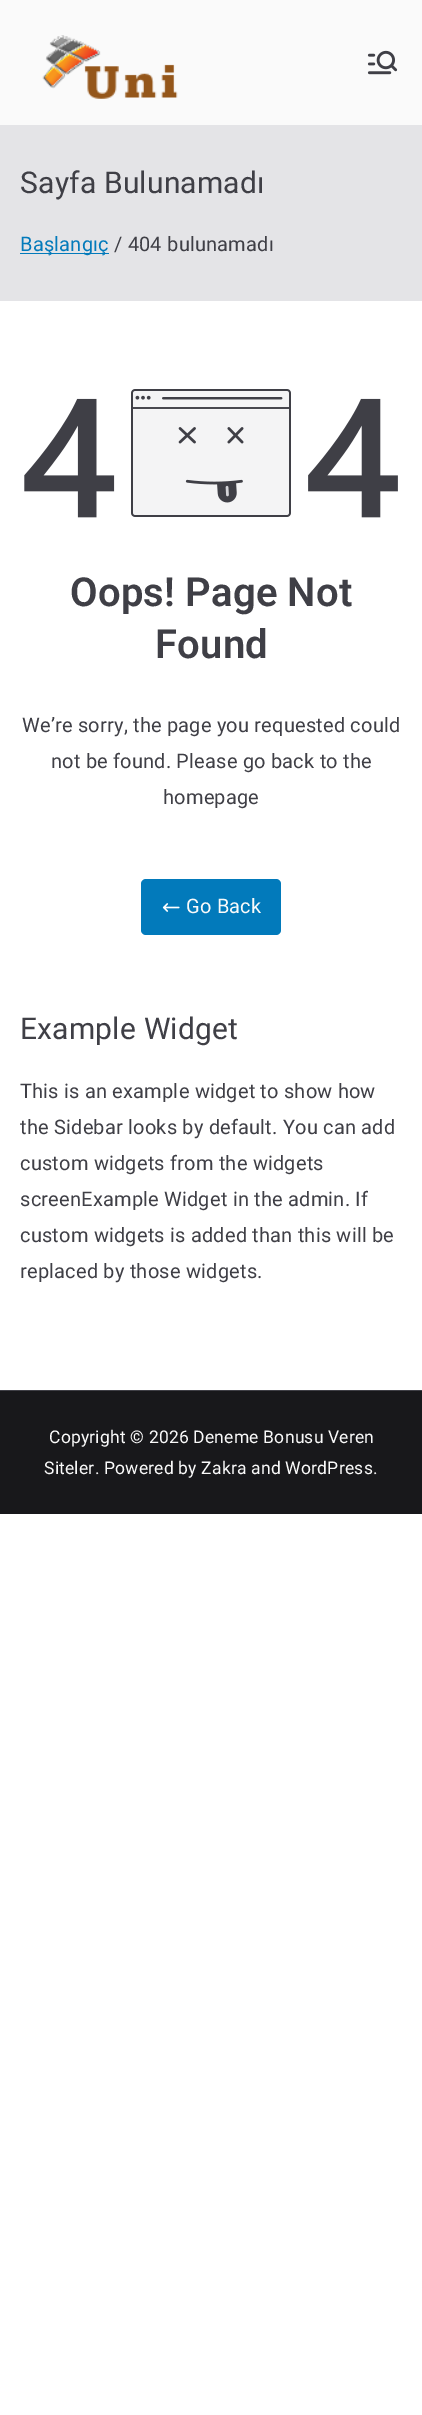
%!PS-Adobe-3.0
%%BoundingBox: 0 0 422 2415
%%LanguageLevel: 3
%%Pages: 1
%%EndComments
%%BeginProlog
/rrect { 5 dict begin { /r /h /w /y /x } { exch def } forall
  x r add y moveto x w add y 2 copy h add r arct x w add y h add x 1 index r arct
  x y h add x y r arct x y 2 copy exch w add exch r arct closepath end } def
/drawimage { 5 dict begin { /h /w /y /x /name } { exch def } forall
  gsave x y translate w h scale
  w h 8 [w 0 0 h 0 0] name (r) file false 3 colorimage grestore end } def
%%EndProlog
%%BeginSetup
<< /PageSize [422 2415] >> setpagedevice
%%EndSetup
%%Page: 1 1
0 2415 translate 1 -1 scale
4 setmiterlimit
1 setgray
0 0 422 2415 rectfill
0.98 setgray
0 0 422 125 rectfill
0.894 0.894 0.906 setrgbcolor
0 125 422 176 rectfill
(images/1.raw) 42 35 136 64 drawimage
(images/2.raw) 367 50 31 25 drawimage
0.008 0.478 0.733 setrgbcolor
20 253 89 1 rectfill
(images/3.raw) 24 389 374 129 drawimage
141 879 140 56 5 rrect fill
(images/4.raw) 162 903 18 9 drawimage
0.094 0.094 0.106 setrgbcolor
0 1391 422 123 rectfill
0.247 0.247 0.275 setrgbcolor
0 1390 422 1 rectfill
/Roboto-Regular [30 0 0 -30 0 0] selectfont
20 193 moveto 0.2 0 (Sayfa Bulunamadı) ashow
/Roboto-Regular [20 0 0 -20 0 0] selectfont
0.008 0.478 0.733 setrgbcolor
20 251 moveto 0.2 0 (Başlangıç) ashow
0.247 0.247 0.275 setrgbcolor
114 251 moveto 0.2 0 (/ 404 bulunamadı) ashow
/Roboto-SemiBold [40 0 0 -40 0 0] selectfont
70 606 moveto 0.2 0 (Oops! Page Not) ashow
155 658 moveto 0.2 0 (Found) ashow
/Roboto-Regular [20 0 0 -20 0 0] selectfont
22 732 moveto 0.2 0 (We’re sorry, the page you requested could) ashow
51 768 moveto 0.2 0 (not be found. Please go back to the) ashow
163 804 moveto 0.2 0 (homepage) ashow
0.98 setgray
186 913 moveto 0.2 0 (Go Back) ashow
/Roboto-Regular [30 0 0 -30 0 0] selectfont
0.247 0.247 0.275 setrgbcolor
20 1039 moveto 0.2 0 (Example Widget) ashow
/Roboto-Regular [20 0 0 -20 0 0] selectfont
20 1098 moveto 0.2 0 (This is an example widget to show how) ashow
20 1134 moveto 0.2 0 (the Sidebar looks by default. You can add) ashow
20 1170 moveto 0.2 0 (custom widgets from the widgets) ashow
20 1206 moveto 0.2 0 (screenExample Widget in the admin. If) ashow
20 1242 moveto 0.2 0 (custom widgets is added than this will be) ashow
20 1278 moveto 0.2 0 (replaced by those widgets.) ashow
/Roboto-Regular [17.5 0 0 -17.5 0 0] selectfont
0.98 setgray
49 1443 moveto 0.2 0 (Copyright © 2026 Deneme Bonusu Veren) ashow
44 1474 moveto 0.2 0 (Siteler. Powered by Zakra and WordPress.) ashow
showpage
%%EOF
